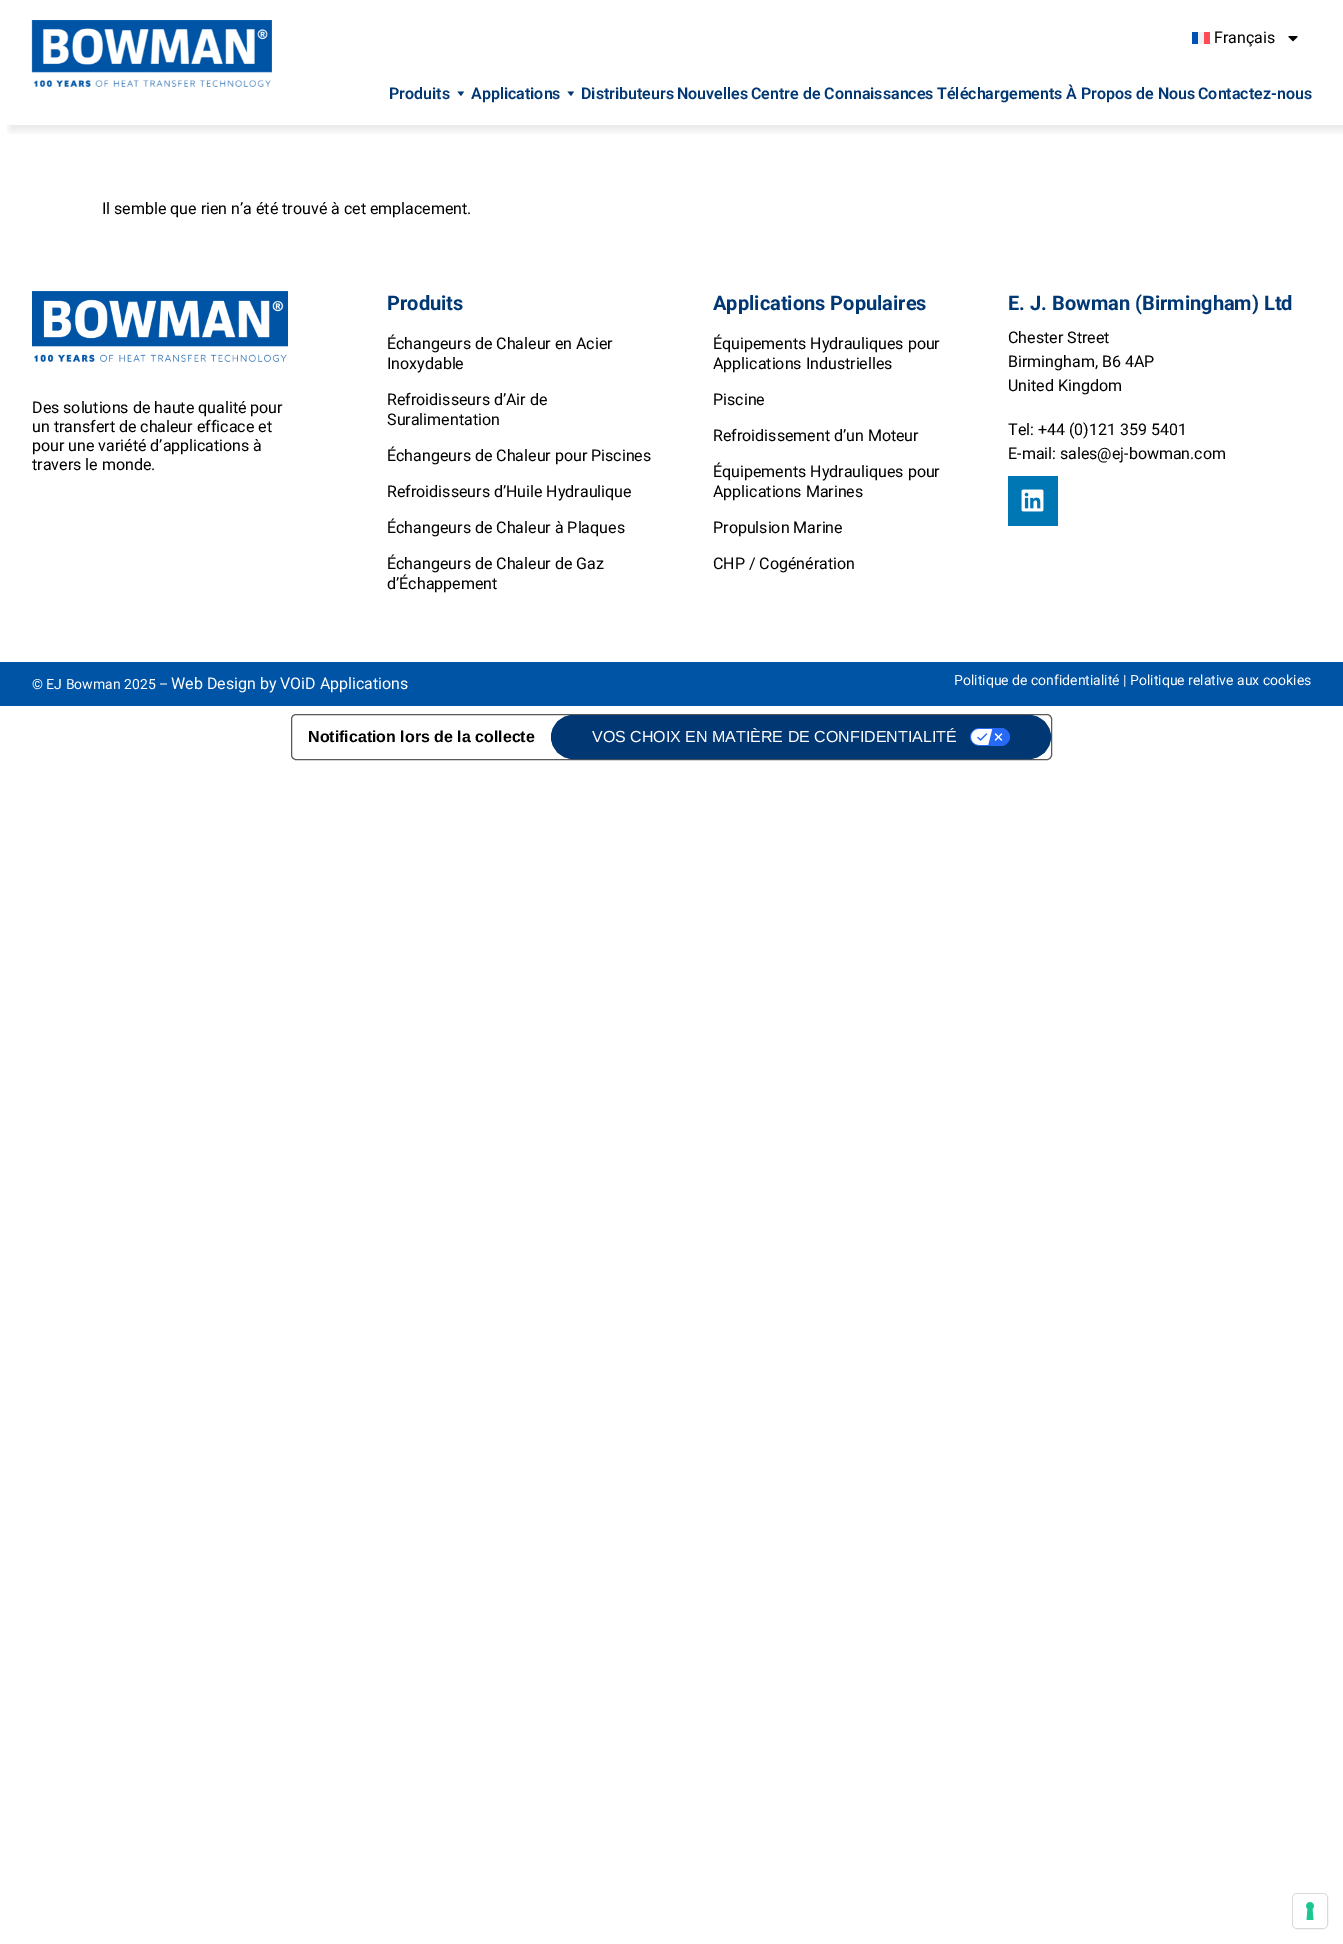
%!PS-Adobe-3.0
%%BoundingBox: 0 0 1343 1944
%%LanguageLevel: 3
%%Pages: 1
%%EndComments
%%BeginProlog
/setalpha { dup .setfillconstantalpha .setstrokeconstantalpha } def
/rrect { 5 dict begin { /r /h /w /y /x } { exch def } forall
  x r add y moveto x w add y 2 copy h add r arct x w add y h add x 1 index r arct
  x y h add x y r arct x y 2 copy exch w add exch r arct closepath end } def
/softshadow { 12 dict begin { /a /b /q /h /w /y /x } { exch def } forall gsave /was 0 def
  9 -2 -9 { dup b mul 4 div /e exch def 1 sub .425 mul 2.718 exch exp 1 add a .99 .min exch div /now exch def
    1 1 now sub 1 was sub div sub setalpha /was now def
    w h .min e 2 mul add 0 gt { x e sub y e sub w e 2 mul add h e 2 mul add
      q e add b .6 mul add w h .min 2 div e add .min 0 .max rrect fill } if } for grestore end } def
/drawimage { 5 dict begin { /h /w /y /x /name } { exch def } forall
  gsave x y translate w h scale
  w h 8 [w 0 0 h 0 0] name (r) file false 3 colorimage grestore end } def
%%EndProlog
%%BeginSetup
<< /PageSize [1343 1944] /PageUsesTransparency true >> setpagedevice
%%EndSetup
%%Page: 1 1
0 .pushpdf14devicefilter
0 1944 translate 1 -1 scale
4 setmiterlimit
1 setgray
0 0 1343 1944 rectfill
gsave
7 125 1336 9 rectclip
0 setgray
10 5 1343 125 0 5 0.1 softshadow
grestore
(images/1.raw) 31 20 241 67 drawimage
0.941 setgray
1198 32 6 12 rectfill
1 0.294 0.333 setrgbcolor
1204 32 6 12 rectfill
0 0.322 0.706 setrgbcolor
1192 32 6 12 rectfill
(images/2.raw) 1288 36 10 6 drawimage
0.004 0.22 0.455 setrgbcolor
newpath 464 91.5 moveto 461 96 lineto 457.5 91.5 lineto closepath fill
newpath 574 91.5 moveto 571 96 lineto 567.5 91.5 lineto closepath fill
(images/3.raw) 32 291 256 71 drawimage
0 0.467 0.71 setrgbcolor
1008 476 50 50 rectfill
(images/4.raw) 1021 489 23 23 drawimage
0 0.329 0.651 setrgbcolor
0 662 1343 44 rectfill
0.349 setgray
291.5 714.5 760 45 4.5 rrect stroke
0.004 0.22 0.455 setrgbcolor
551.5 715.5 499 43 21.5 rrect gsave fill grestore
stroke
(images/5.raw) 970 728 40 18 drawimage
0.851 setgray
1292.5 1893.5 35 35 4.5 rrect stroke
1 setgray
1293 1894 34 34 4 rrect fill
(images/6.raw) 1306 1902 8 18 drawimage
/Roboto-Regular [16 0 0 -16 0 0] selectfont
0 setgray
1214 43 moveto (Français) show
/Roboto-SemiBold [16 0 0 -16 0 0] selectfont
0.004 0.22 0.455 setrgbcolor
389 99 moveto (Produits) show
471 99 moveto (Applications) show
581 99 moveto (Distributeurs) show
677 99 moveto (Nouvelles) show
751 99 moveto (Centre de Connaissances) show
937 99 moveto (Téléchargements) show
1066 99 moveto (À Propos de Nous) show
1198 99 moveto (Contactez-nous) show
/Roboto-Regular [16 0 0 -16 0 0] selectfont
0 setgray
102 214 moveto (Il semble que rien n’a été trouvé à cet emplacement.) show
32 413 moveto (Des solutions de haute qualité pour) show
32 432 moveto (un transfert de chaleur efficace et) show
32 451 moveto (pour une variété d’applications à) show
32 470 moveto (travers le monde.) show
/Roboto-Bold [20 0 0 -20 0 0] selectfont
0.004 0.22 0.455 setrgbcolor
387 310 moveto (Produits) show
/Roboto-Regular [16 0 0 -16 0 0] selectfont
0 setgray
387 349 moveto (Échangeurs de Chaleur en Acier) show
387 369 moveto (Inoxydable) show
387 405 moveto (Refroidisseurs d’Air de) show
387 425 moveto (Suralimentation) show
387 461 moveto (Échangeurs de Chaleur pour Piscines) show
387 497 moveto (Refroidisseurs d’Huile Hydraulique) show
387 533 moveto (Échangeurs de Chaleur à Plaques) show
387 569 moveto (Échangeurs de Chaleur de Gaz) show
387 589 moveto (d’Échappement) show
/Roboto-Bold [20 0 0 -20 0 0] selectfont
0.004 0.22 0.455 setrgbcolor
713 310 moveto (Applications Populaires) show
/Roboto-Regular [16 0 0 -16 0 0] selectfont
0 setgray
713 349 moveto (Équipements Hydrauliques pour) show
713 369 moveto (Applications Industrielles) show
713 405 moveto (Piscine) show
713 441 moveto (Refroidissement d’un Moteur) show
713 477 moveto (Équipements Hydrauliques pour) show
713 497 moveto (Applications Marines) show
713 533 moveto (Propulsion Marine) show
713 569 moveto (CHP / Cogénération) show
/Roboto-Bold [20 0 0 -20 0 0] selectfont
0.004 0.22 0.455 setrgbcolor
1008 310 moveto (E. J. Bowman \(Birmingham\) Ltd) show
/Roboto-Regular [16 0 0 -16 0 0] selectfont
0 setgray
1008 343 moveto (Chester Street) show
1008 367 moveto (Birmingham, B6 4AP) show
1008 391 moveto (United Kingdom) show
1008 435 moveto (Tel: +44 \(0\)121 359 5401) show
1008 459 moveto (E-mail: sales@ej-bowman.com) show
/Roboto-Regular [14 0 0 -14 0 0] selectfont
1 setgray
32 689 moveto (© EJ Bowman 2025 –) show
/Roboto-Regular [16 0 0 -16 0 0] selectfont
171 689 moveto (Web Design by VOiD Applications) show
/Roboto-Regular [14 0 0 -14 0 0] selectfont
954 685 moveto (Politique de confidentialité | Politique relative aux cookies) show
/LiberationSans-Bold [16 0 0 -16 0 0] selectfont
0 setgray
308 742 moveto (Notification lors de la collecte) show
/LiberationSans-Regular [16 0 0 -16 0 0] selectfont
1 setgray
592 742 moveto (VOS CHOIX EN MATIÈRE DE CONFIDENTIALITÉ) show
.poppdf14devicefilter showpage
%%EOF
